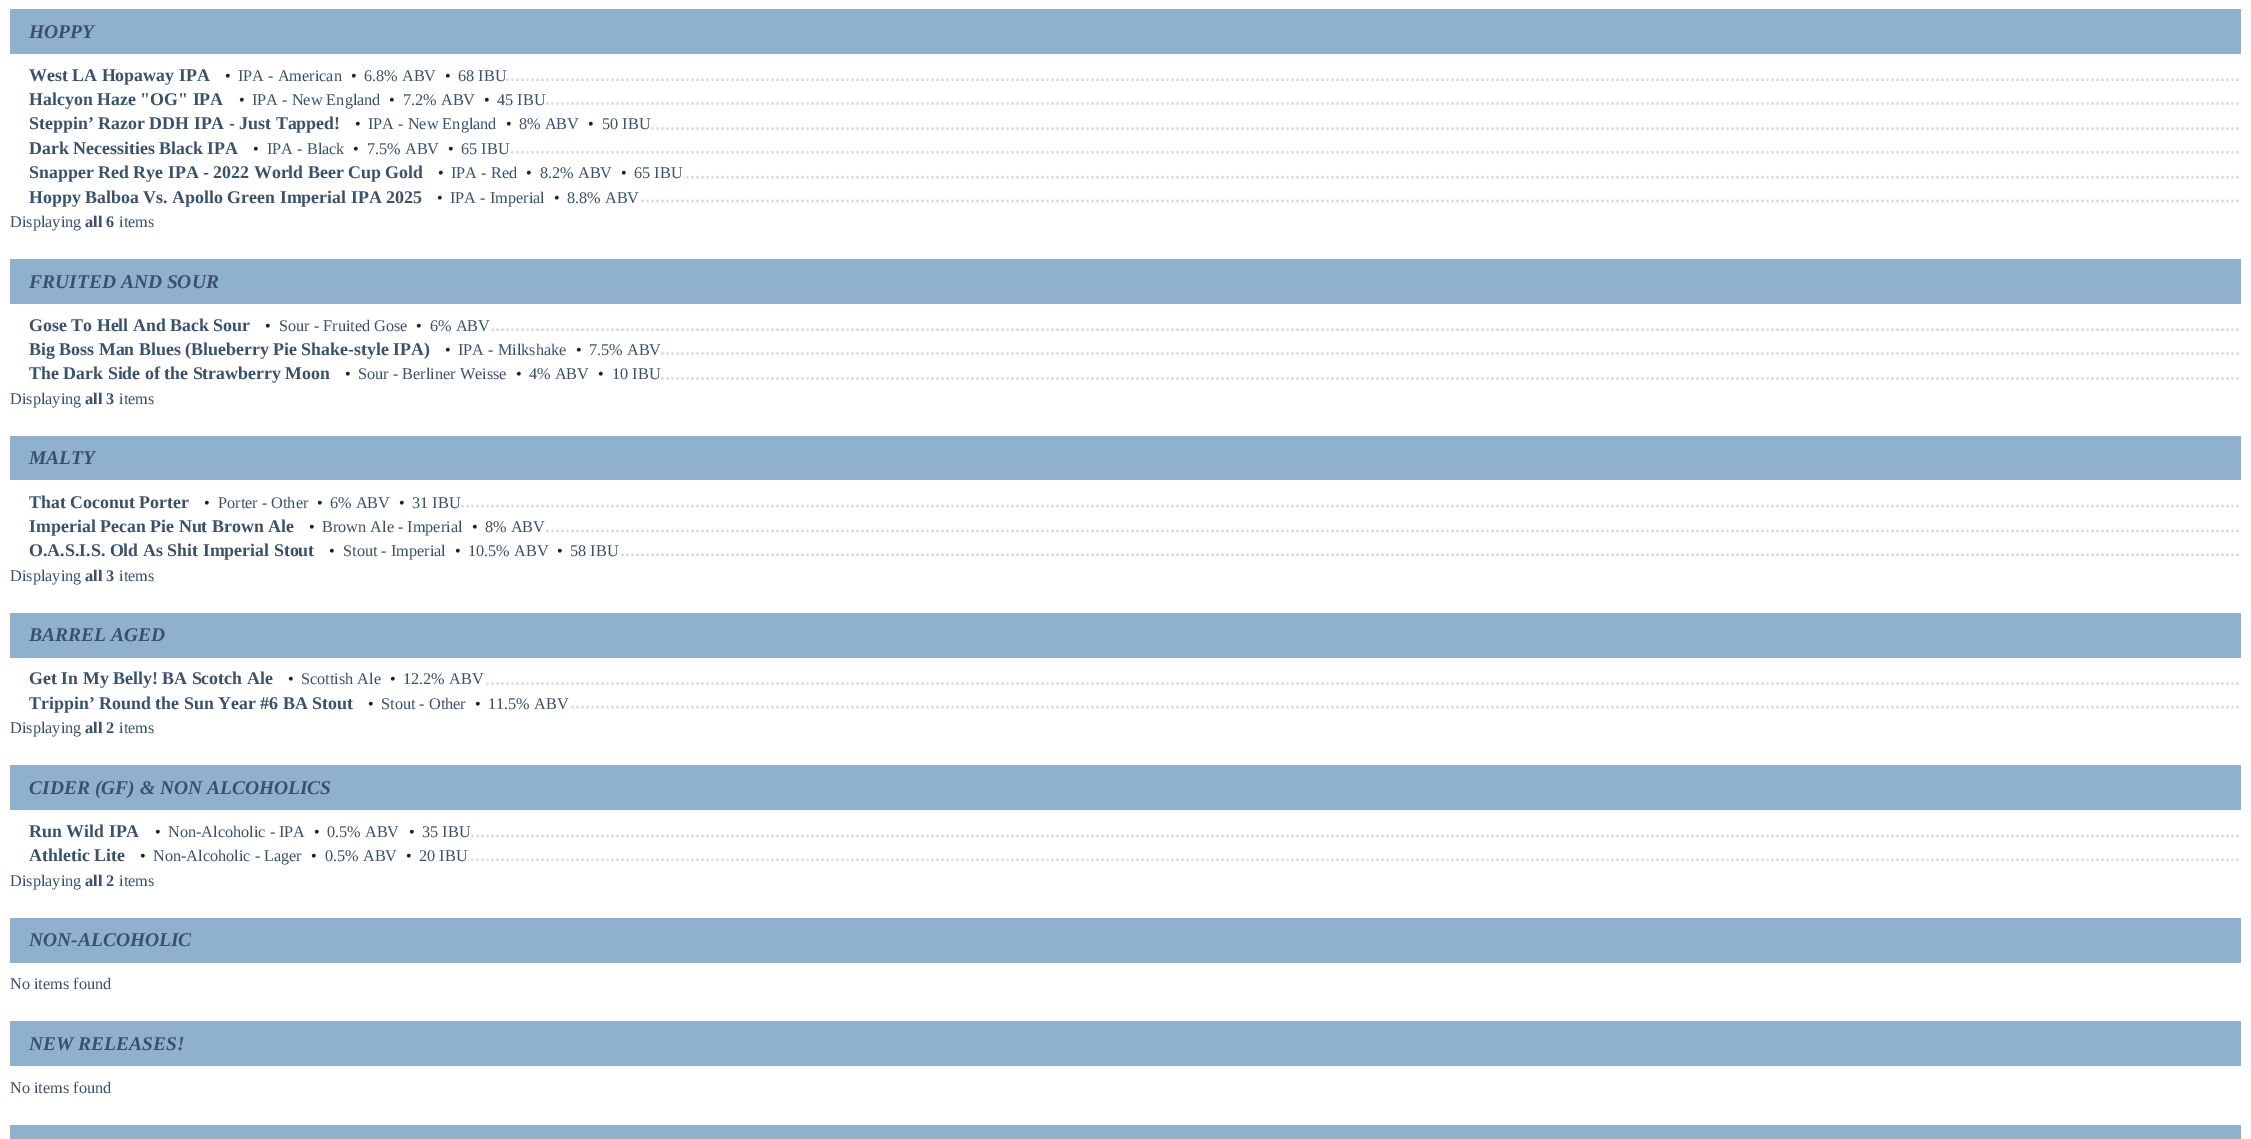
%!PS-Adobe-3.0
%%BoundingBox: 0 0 2251 1139
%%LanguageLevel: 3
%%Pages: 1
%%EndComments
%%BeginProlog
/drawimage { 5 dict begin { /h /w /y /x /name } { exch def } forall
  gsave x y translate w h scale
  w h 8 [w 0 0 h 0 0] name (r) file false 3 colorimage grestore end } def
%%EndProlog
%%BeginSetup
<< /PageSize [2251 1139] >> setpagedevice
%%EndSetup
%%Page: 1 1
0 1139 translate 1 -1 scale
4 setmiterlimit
1 setgray
0 0 2251 1139 rectfill
0.565 0.694 0.804 setrgbcolor
10 9 2231 45 rectfill
(images/1.raw) 506 78 1733 3 drawimage
(images/2.raw) 546 102 1693 3 drawimage
(images/3.raw) 651 127 1588 3 drawimage
(images/4.raw) 511 150 1728 4 drawimage
(images/5.raw) 683 175 1556 4 drawimage
(images/6.raw) 641 199 1598 4 drawimage
10 259 2231 45 rectfill
(images/7.raw) 491 328 1748 3 drawimage
(images/8.raw) 661 352 1578 3 drawimage
(images/8.raw) 661 377 1578 3 drawimage
10 436 2231 44 rectfill
(images/9.raw) 461 504 1778 4 drawimage
(images/10.raw) 546 529 1693 4 drawimage
(images/11.raw) 621 553 1618 3 drawimage
10 613 2231 45 rectfill
(images/12.raw) 486 682 1753 3 drawimage
(images/13.raw) 571 705 1668 4 drawimage
10 765 2231 45 rectfill
(images/14.raw) 471 834 1768 4 drawimage
(images/15.raw) 468 858 1771 3 drawimage
10 918 2231 45 rectfill
10 1021 2231 45 rectfill
10 1125 2231 14 rectfill
/LiberationSerif-BoldItalic [19.5 0 0 -19.5 0 0] selectfont
0.227 0.318 0.42 setrgbcolor
29 38 moveto (HOPPY) show
/LiberationSerif-Bold [17.9 0 0 -17.9 0 0] selectfont
29 81 moveto (West LA Hopaway IPA) show
/LiberationSerif-Regular [16.25 0 0 -16.25 0 0] selectfont
0.129 setgray
225 81 moveto (•) show
0.227 0.318 0.42 setrgbcolor
238 81 moveto (IPA - American) show
0.129 setgray
351 81 moveto (•) show
0.227 0.318 0.42 setrgbcolor
364 81 moveto (6.8% ABV) show
0.129 setgray
445 81 moveto (•) show
0.227 0.318 0.42 setrgbcolor
458 81 moveto (68 IBU) show
/LiberationSerif-Bold [17.9 0 0 -17.9 0 0] selectfont
29 105 moveto (Halcyon Haze "OG" IPA) show
/LiberationSerif-Regular [16.25 0 0 -16.25 0 0] selectfont
0.129 setgray
239 105 moveto (•) show
0.227 0.318 0.42 setrgbcolor
252 105 moveto (IPA - New England) show
0.129 setgray
389 105 moveto (•) show
0.227 0.318 0.42 setrgbcolor
403 105 moveto (7.2% ABV) show
0.129 setgray
484 105 moveto (•) show
0.227 0.318 0.42 setrgbcolor
497 105 moveto (45 IBU) show
/LiberationSerif-Bold [17.9 0 0 -17.9 0 0] selectfont
29 129 moveto (Steppin’ Razor DDH IPA - Just Tapped!) show
/LiberationSerif-Regular [16.25 0 0 -16.25 0 0] selectfont
0.129 setgray
355 129 moveto (•) show
0.227 0.318 0.42 setrgbcolor
368 129 moveto (IPA - New England) show
0.129 setgray
506 129 moveto (•) show
0.227 0.318 0.42 setrgbcolor
519 129 moveto (8% ABV) show
0.129 setgray
588 129 moveto (•) show
0.227 0.318 0.42 setrgbcolor
602 129 moveto (50 IBU) show
/LiberationSerif-Bold [17.9 0 0 -17.9 0 0] selectfont
29 154 moveto (Dark Necessities Black IPA) show
/LiberationSerif-Regular [16.25 0 0 -16.25 0 0] selectfont
0.129 setgray
253 154 moveto (•) show
0.227 0.318 0.42 setrgbcolor
267 154 moveto (IPA - Black) show
0.129 setgray
353 154 moveto (•) show
0.227 0.318 0.42 setrgbcolor
367 154 moveto (7.5% ABV) show
0.129 setgray
448 154 moveto (•) show
0.227 0.318 0.42 setrgbcolor
461 154 moveto (65 IBU) show
/LiberationSerif-Bold [17.9 0 0 -17.9 0 0] selectfont
29 178 moveto (Snapper Red Rye IPA - 2022 World Beer Cup Gold) show
/LiberationSerif-Regular [16.25 0 0 -16.25 0 0] selectfont
0.129 setgray
438 178 moveto (•) show
0.227 0.318 0.42 setrgbcolor
451 178 moveto (IPA - Red) show
0.129 setgray
526 178 moveto (•) show
0.227 0.318 0.42 setrgbcolor
540 178 moveto (8.2% ABV) show
0.129 setgray
621 178 moveto (•) show
0.227 0.318 0.42 setrgbcolor
634 178 moveto (65 IBU) show
/LiberationSerif-Bold [17.9 0 0 -17.9 0 0] selectfont
29 203 moveto (Hoppy Balboa Vs. Apollo Green Imperial IPA 2025) show
/LiberationSerif-Regular [16.25 0 0 -16.25 0 0] selectfont
0.129 setgray
437 203 moveto (•) show
0.227 0.318 0.42 setrgbcolor
450 203 moveto (IPA - Imperial) show
0.129 setgray
554 203 moveto (•) show
0.227 0.318 0.42 setrgbcolor
567 203 moveto (8.8% ABV) show
10 227 moveto (Displaying) show
/LiberationSerif-Bold [16.25 0 0 -16.25 0 0] selectfont
85 227 moveto (all 6) show
/LiberationSerif-Regular [16.25 0 0 -16.25 0 0] selectfont
119 227 moveto (items) show
/LiberationSerif-BoldItalic [19.5 0 0 -19.5 0 0] selectfont
29 288 moveto (FRUITED AND SOUR) show
/LiberationSerif-Bold [17.9 0 0 -17.9 0 0] selectfont
29 331 moveto (Gose To Hell And Back Sour) show
/LiberationSerif-Regular [16.25 0 0 -16.25 0 0] selectfont
0.129 setgray
265 331 moveto (•) show
0.227 0.318 0.42 setrgbcolor
279 331 moveto (Sour - Fruited Gose) show
0.129 setgray
416 331 moveto (•) show
0.227 0.318 0.42 setrgbcolor
430 331 moveto (6% ABV) show
/LiberationSerif-Bold [17.9 0 0 -17.9 0 0] selectfont
29 355 moveto (Big Boss Man Blues \(Blueberry Pie Shake-style IPA\)) show
/LiberationSerif-Regular [16.25 0 0 -16.25 0 0] selectfont
0.129 setgray
445 355 moveto (•) show
0.227 0.318 0.42 setrgbcolor
458 355 moveto (IPA - Milkshake) show
0.129 setgray
576 355 moveto (•) show
0.227 0.318 0.42 setrgbcolor
589 355 moveto (7.5% ABV) show
/LiberationSerif-Bold [17.9 0 0 -17.9 0 0] selectfont
29 379 moveto (The Dark Side of the Strawberry Moon) show
/LiberationSerif-Regular [16.25 0 0 -16.25 0 0] selectfont
0.129 setgray
345 379 moveto (•) show
0.227 0.318 0.42 setrgbcolor
358 379 moveto (Sour - Berliner Weisse) show
0.129 setgray
516 379 moveto (•) show
0.227 0.318 0.42 setrgbcolor
529 379 moveto (4% ABV) show
0.129 setgray
598 379 moveto (•) show
0.227 0.318 0.42 setrgbcolor
612 379 moveto (10 IBU) show
10 404 moveto (Displaying) show
/LiberationSerif-Bold [16.25 0 0 -16.25 0 0] selectfont
85 404 moveto (all 3) show
/LiberationSerif-Regular [16.25 0 0 -16.25 0 0] selectfont
119 404 moveto (items) show
/LiberationSerif-BoldItalic [19.5 0 0 -19.5 0 0] selectfont
29 464 moveto (MALTY) show
/LiberationSerif-Bold [17.9 0 0 -17.9 0 0] selectfont
29 508 moveto (That Coconut Porter) show
/LiberationSerif-Regular [16.25 0 0 -16.25 0 0] selectfont
0.129 setgray
204 508 moveto (•) show
0.227 0.318 0.42 setrgbcolor
218 508 moveto (Porter - Other) show
0.129 setgray
317 508 moveto (•) show
0.227 0.318 0.42 setrgbcolor
330 508 moveto (6% ABV) show
0.129 setgray
399 508 moveto (•) show
0.227 0.318 0.42 setrgbcolor
412 508 moveto (31 IBU) show
/LiberationSerif-Bold [17.9 0 0 -17.9 0 0] selectfont
29 532 moveto (Imperial Pecan Pie Nut Brown Ale) show
/LiberationSerif-Regular [16.25 0 0 -16.25 0 0] selectfont
0.129 setgray
309 532 moveto (•) show
0.227 0.318 0.42 setrgbcolor
322 532 moveto (Brown Ale - Imperial) show
0.129 setgray
472 532 moveto (•) show
0.227 0.318 0.42 setrgbcolor
485 532 moveto (8% ABV) show
/LiberationSerif-Bold [17.9 0 0 -17.9 0 0] selectfont
29 556 moveto (O.A.S.I.S. Old As Shit Imperial Stout) show
/LiberationSerif-Regular [16.25 0 0 -16.25 0 0] selectfont
0.129 setgray
329 556 moveto (•) show
0.227 0.318 0.42 setrgbcolor
343 556 moveto (Stout - Imperial) show
0.129 setgray
455 556 moveto (•) show
0.227 0.318 0.42 setrgbcolor
468 556 moveto (10.5% ABV) show
0.129 setgray
557 556 moveto (•) show
0.227 0.318 0.42 setrgbcolor
570 556 moveto (58 IBU) show
10 581 moveto (Displaying) show
/LiberationSerif-Bold [16.25 0 0 -16.25 0 0] selectfont
85 581 moveto (all 3) show
/LiberationSerif-Regular [16.25 0 0 -16.25 0 0] selectfont
119 581 moveto (items) show
/LiberationSerif-BoldItalic [19.5 0 0 -19.5 0 0] selectfont
29 641 moveto (BARREL AGED) show
/LiberationSerif-Bold [17.9 0 0 -17.9 0 0] selectfont
29 684 moveto (Get In My Belly! BA Scotch Ale) show
/LiberationSerif-Regular [16.25 0 0 -16.25 0 0] selectfont
0.129 setgray
288 684 moveto (•) show
0.227 0.318 0.42 setrgbcolor
301 684 moveto (Scottish Ale) show
0.129 setgray
390 684 moveto (•) show
0.227 0.318 0.42 setrgbcolor
403 684 moveto (12.2% ABV) show
/LiberationSerif-Bold [17.9 0 0 -17.9 0 0] selectfont
29 709 moveto (Trippin’ Round the Sun Year #6 BA Stout) show
/LiberationSerif-Regular [16.25 0 0 -16.25 0 0] selectfont
0.129 setgray
368 709 moveto (•) show
0.227 0.318 0.42 setrgbcolor
381 709 moveto (Stout - Other) show
0.129 setgray
475 709 moveto (•) show
0.227 0.318 0.42 setrgbcolor
488 709 moveto (11.5% ABV) show
10 733 moveto (Displaying) show
/LiberationSerif-Bold [16.25 0 0 -16.25 0 0] selectfont
85 733 moveto (all 2) show
/LiberationSerif-Regular [16.25 0 0 -16.25 0 0] selectfont
119 733 moveto (items) show
/LiberationSerif-BoldItalic [19.5 0 0 -19.5 0 0] selectfont
29 794 moveto (CIDER \(GF\) & NON ALCOHOLICS) show
/LiberationSerif-Bold [17.9 0 0 -17.9 0 0] selectfont
29 837 moveto (Run Wild IPA) show
/LiberationSerif-Regular [16.25 0 0 -16.25 0 0] selectfont
0.129 setgray
155 837 moveto (•) show
0.227 0.318 0.42 setrgbcolor
168 837 moveto (Non-Alcoholic - IPA) show
0.129 setgray
314 837 moveto (•) show
0.227 0.318 0.42 setrgbcolor
327 837 moveto (0.5% ABV) show
0.129 setgray
409 837 moveto (•) show
0.227 0.318 0.42 setrgbcolor
422 837 moveto (35 IBU) show
/LiberationSerif-Bold [17.9 0 0 -17.9 0 0] selectfont
29 861 moveto (Athletic Lite) show
/LiberationSerif-Regular [16.25 0 0 -16.25 0 0] selectfont
0.129 setgray
140 861 moveto (•) show
0.227 0.318 0.42 setrgbcolor
153 861 moveto (Non-Alcoholic - Lager) show
0.129 setgray
311 861 moveto (•) show
0.227 0.318 0.42 setrgbcolor
325 861 moveto (0.5% ABV) show
0.129 setgray
406 861 moveto (•) show
0.227 0.318 0.42 setrgbcolor
419 861 moveto (20 IBU) show
10 886 moveto (Displaying) show
/LiberationSerif-Bold [16.25 0 0 -16.25 0 0] selectfont
85 886 moveto (all 2) show
/LiberationSerif-Regular [16.25 0 0 -16.25 0 0] selectfont
119 886 moveto (items) show
/LiberationSerif-BoldItalic [19.5 0 0 -19.5 0 0] selectfont
29 946 moveto (NON-ALCOHOLIC) show
/LiberationSerif-Regular [16.25 0 0 -16.25 0 0] selectfont
10 989 moveto (No items found) show
/LiberationSerif-BoldItalic [19.5 0 0 -19.5 0 0] selectfont
29 1050 moveto (NEW RELEASES!) show
/LiberationSerif-Regular [16.25 0 0 -16.25 0 0] selectfont
10 1093 moveto (No items found) show
showpage
%%EOF
